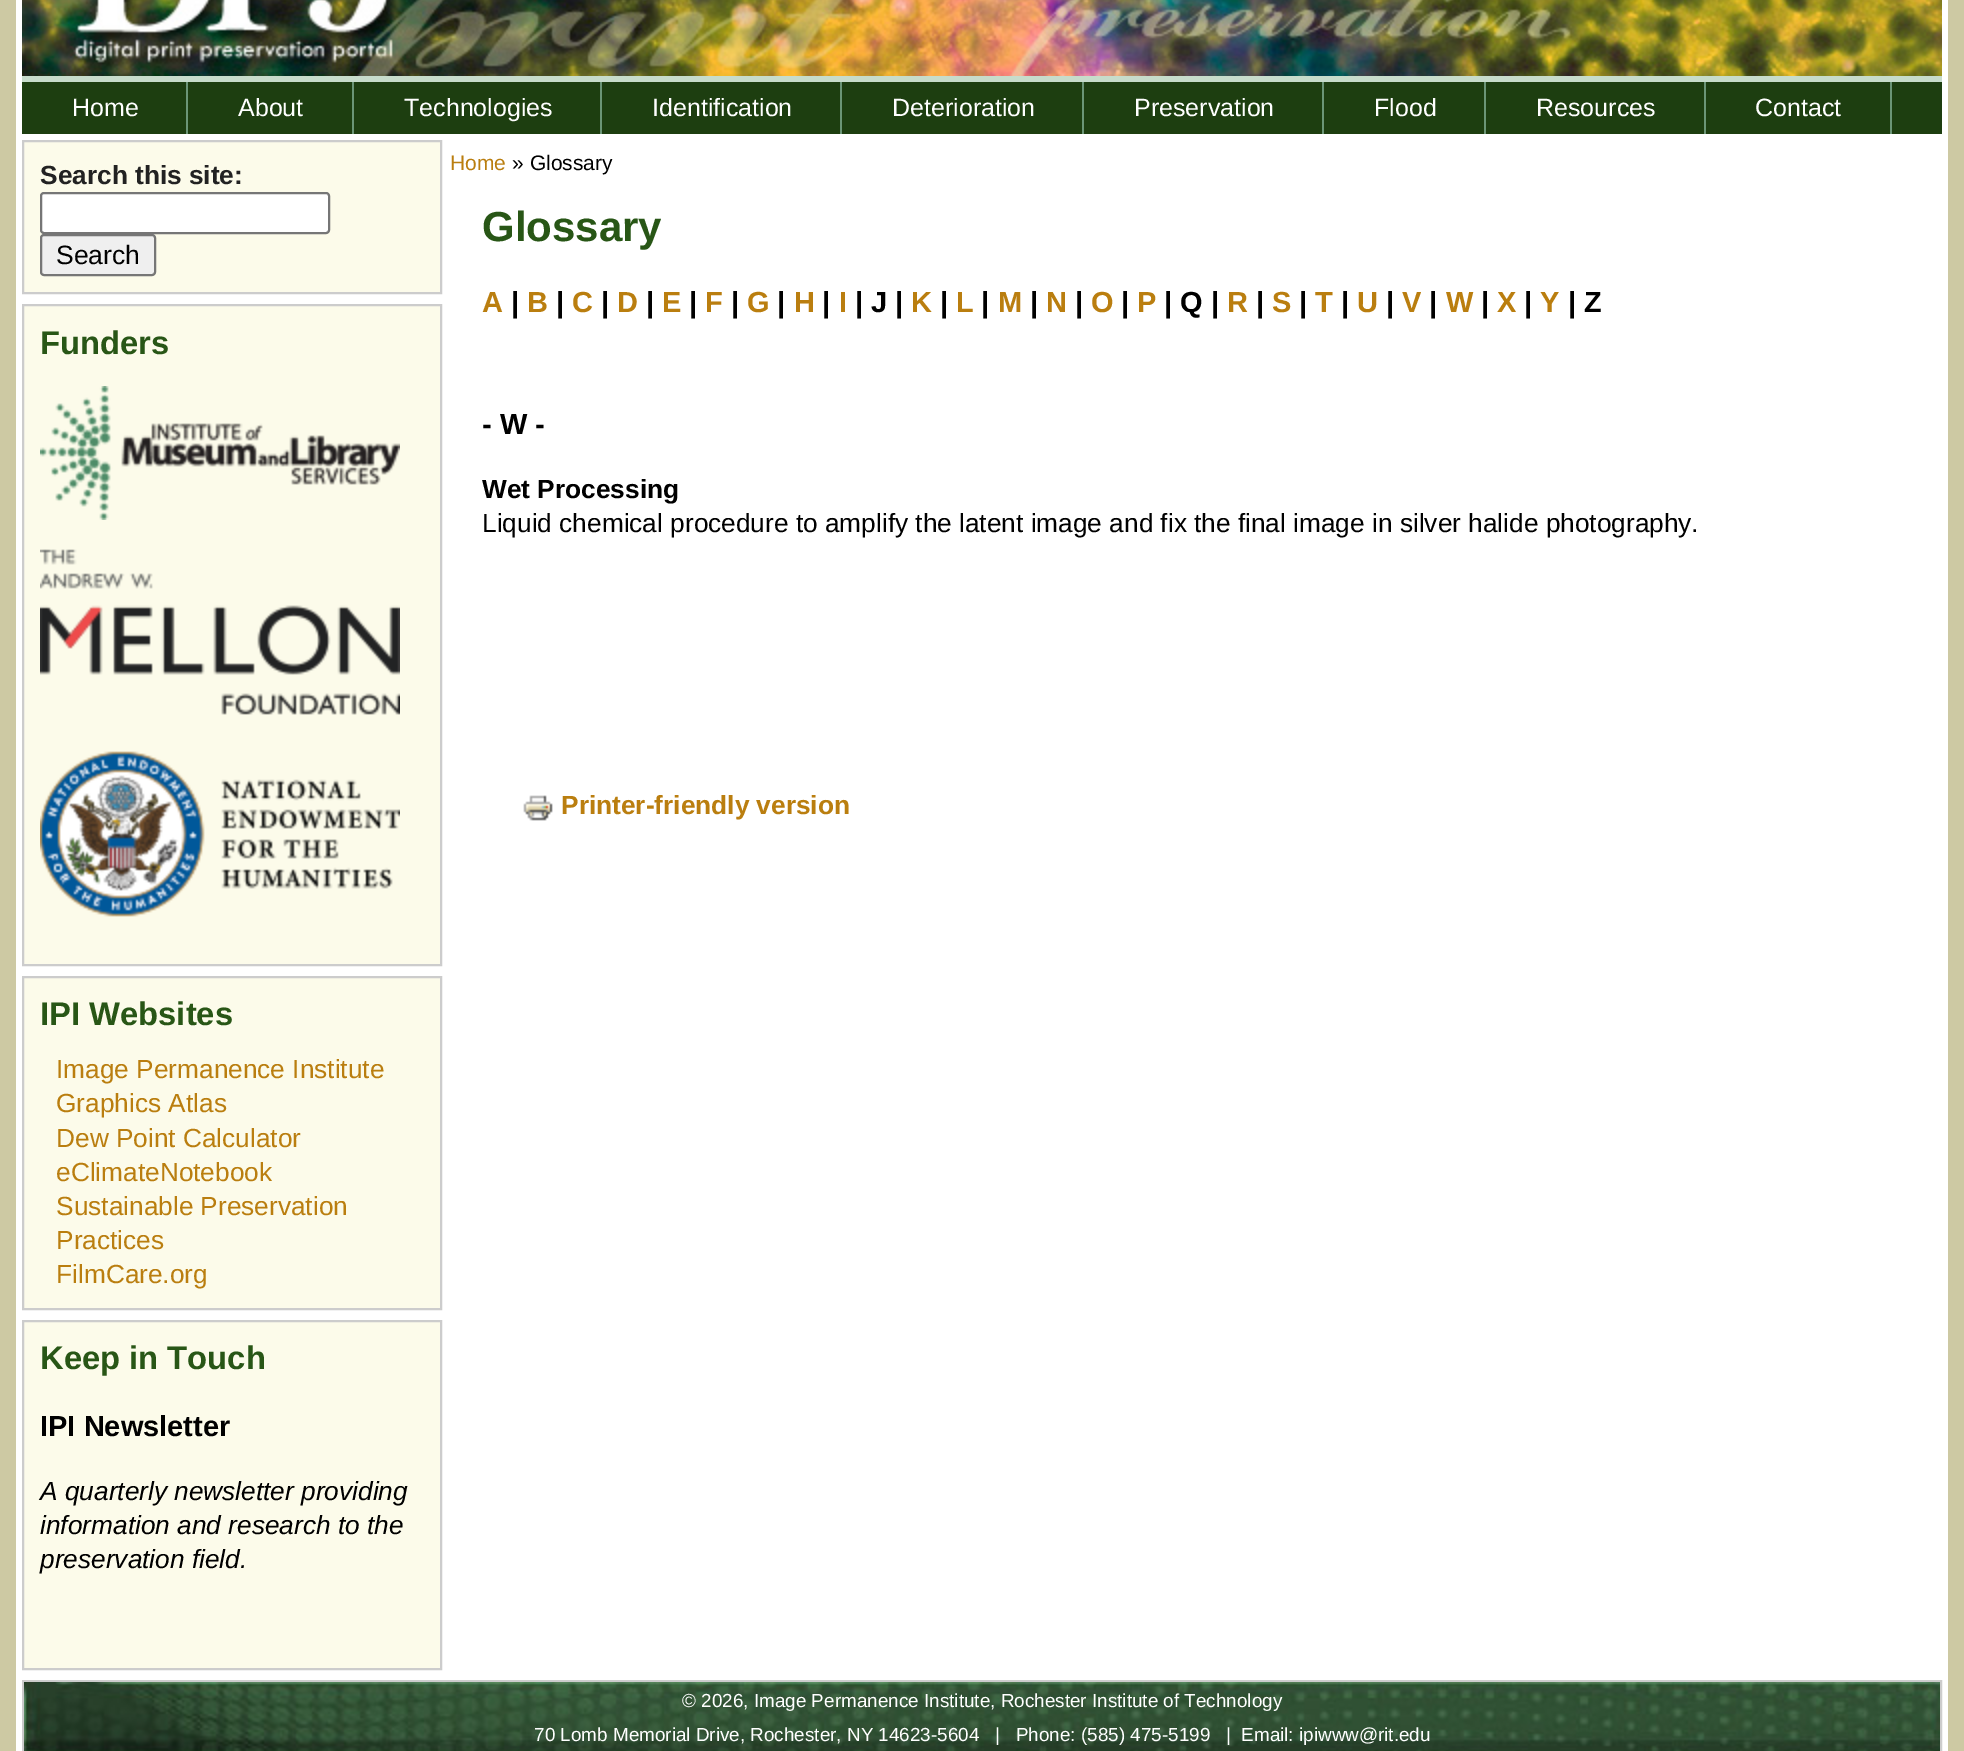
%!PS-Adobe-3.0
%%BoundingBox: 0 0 1964 1751
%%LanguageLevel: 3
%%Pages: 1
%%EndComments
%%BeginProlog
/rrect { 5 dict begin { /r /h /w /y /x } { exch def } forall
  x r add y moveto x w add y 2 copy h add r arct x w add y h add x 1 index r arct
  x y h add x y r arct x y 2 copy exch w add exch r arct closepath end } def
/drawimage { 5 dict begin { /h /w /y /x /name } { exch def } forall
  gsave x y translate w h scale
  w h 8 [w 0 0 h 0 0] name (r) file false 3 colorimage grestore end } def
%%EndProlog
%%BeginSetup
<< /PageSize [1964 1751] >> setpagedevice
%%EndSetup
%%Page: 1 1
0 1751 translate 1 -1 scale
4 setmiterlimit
0.804 0.788 0.639 setrgbcolor
0 0 1964 1751 rectfill
1 setgray
16 0 1932 1751 rectfill
(images/1.raw) 22 0 1920 76 drawimage
0.114 0.243 0.063 setrgbcolor
22 82 1920 52 rectfill
0.78 0.863 0.796 setrgbcolor
22 76 1920 6 rectfill
0.42 0.584 0.463 setrgbcolor
186 82 2 52 rectfill
352 82 2 52 rectfill
600 82 2 52 rectfill
840 82 2 52 rectfill
1082 82 2 52 rectfill
1322 82 2 52 rectfill
1484 82 2 52 rectfill
1704 82 2 52 rectfill
1890 82 2 52 rectfill
0.988 0.984 0.918 setrgbcolor
newpath 23 141 moveto 441 141 lineto 441 293 lineto 23 293 lineto closepath gsave fill grestore
0.8 setgray
2 setlinewidth
stroke
1 setgray
41 193 288 40 3 rrect gsave fill grestore
0.463 setgray
stroke
0.937 setgray
41 235 114 40 3 rrect gsave fill grestore
0.463 setgray
stroke
0.988 0.984 0.918 setrgbcolor
newpath 23 305 moveto 441 305 lineto 441 965 lineto 23 965 lineto closepath gsave fill grestore
0.8 setgray
stroke
(images/2.raw) 40 386 360 134 drawimage
(images/3.raw) 40 549 360 166 drawimage
(images/4.raw) 40 751 360 166 drawimage
0.988 0.984 0.918 setrgbcolor
newpath 23 977 moveto 441 977 lineto 441 1309 lineto 23 1309 lineto closepath gsave fill grestore
0.8 setgray
stroke
0.988 0.984 0.918 setrgbcolor
newpath 23 1321 moveto 441 1321 lineto 441 1669 lineto 23 1669 lineto closepath gsave fill grestore
0.8 setgray
stroke
(images/5.raw) 523 795 30 26 drawimage
23 1681 1918 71 rectstroke
(images/6.raw) 24 1682 1916 69 drawimage
/LiberationSans-Regular [25 0 0 -25 0 0] selectfont
1 setgray
72 116 moveto (Home) show
238 116 moveto (About) show
404 116 moveto (Technologies) show
652 116 moveto (Identification) show
892 116 moveto (Deterioration) show
1134 116 moveto (Preservation) show
1374 116 moveto (Flood) show
1536 116 moveto (Resources) show
1755 116 moveto (Contact) show
/LiberationSans-Bold [26.25 0 0 -26.25 0 0] selectfont
0.133 setgray
40 184 moveto (Search this site:) show
/LiberationSans-Regular [26.5 0 0 -26.5 0 0] selectfont
0 setgray
56 264 moveto (Search) show
/LiberationSans-Bold [32.75 0 0 -32.75 0 0] selectfont
0.157 0.337 0.086 setrgbcolor
40 354 moveto (Funders) show
40 1025 moveto (IPI Websites) show
/LiberationSans-Regular [26.25 0 0 -26.25 0 0] selectfont
0.729 0.494 0.059 setrgbcolor
56 1078 moveto (Image Permanence Institute) show
56 1112 moveto (Graphics Atlas) show
56 1147 moveto (Dew Point Calculator) show
56 1181 moveto (eClimateNotebook) show
56 1215 moveto (Sustainable Preservation) show
56 1249 moveto (Practices) show
56 1283 moveto (FilmCare.org) show
/LiberationSans-Bold [32.75 0 0 -32.75 0 0] selectfont
0.157 0.337 0.086 setrgbcolor
40 1369 moveto (Keep in Touch) show
/LiberationSans-Bold [29 0 0 -29 0 0] selectfont
0 setgray
40 1436 moveto (IPI Newsletter) show
/LiberationSans-Italic [26.25 0 0 -26.25 0 0] selectfont
40 1500 moveto (A quarterly newsletter providing) show
40 1534 moveto (information and research to the) show
40 1568 moveto (preservation field.) show
/LiberationSans-Regular [21 0 0 -21 0 0] selectfont
0.729 0.494 0.059 setrgbcolor
450 170 moveto (Home) show
0 setgray
512 170 moveto (» Glossary) show
/LiberationSans-Bold [42 0 0 -42 0 0] selectfont
0.157 0.337 0.086 setrgbcolor
482 241 moveto (Glossary) show
/LiberationSans-Bold [29 0 0 -29 0 0] selectfont
0.729 0.494 0.059 setrgbcolor
482 312 moveto (A) show
0 setgray
511 312 moveto (|) show
0.729 0.494 0.059 setrgbcolor
527 312 moveto (B) show
0 setgray
556 312 moveto (|) show
0.729 0.494 0.059 setrgbcolor
572 312 moveto (C) show
0 setgray
601 312 moveto (|) show
0.729 0.494 0.059 setrgbcolor
617 312 moveto (D) show
0 setgray
646 312 moveto (|) show
0.729 0.494 0.059 setrgbcolor
662 312 moveto (E) show
0 setgray
689 312 moveto (|) show
0.729 0.494 0.059 setrgbcolor
705 312 moveto (F) show
0 setgray
731 312 moveto (|) show
0.729 0.494 0.059 setrgbcolor
747 312 moveto (G) show
0 setgray
777 312 moveto (|) show
0.729 0.494 0.059 setrgbcolor
794 312 moveto (H) show
0 setgray
822 312 moveto (|) show
0.729 0.494 0.059 setrgbcolor
839 312 moveto (I) show
0 setgray
855 312 moveto (| J |) show
0.729 0.494 0.059 setrgbcolor
911 312 moveto (K) show
0 setgray
940 312 moveto (|) show
0.729 0.494 0.059 setrgbcolor
956 312 moveto (L) show
0 setgray
981 312 moveto (|) show
0.729 0.494 0.059 setrgbcolor
998 312 moveto (M) show
0 setgray
1030 312 moveto (|) show
0.729 0.494 0.059 setrgbcolor
1046 312 moveto (N) show
0 setgray
1075 312 moveto (|) show
0.729 0.494 0.059 setrgbcolor
1091 312 moveto (O) show
0 setgray
1121 312 moveto (|) show
0.729 0.494 0.059 setrgbcolor
1137 312 moveto (P) show
0 setgray
1164 312 moveto (| Q |) show
0.729 0.494 0.059 setrgbcolor
1227 312 moveto (R) show
0 setgray
1256 312 moveto (|) show
0.729 0.494 0.059 setrgbcolor
1272 312 moveto (S) show
0 setgray
1299 312 moveto (|) show
0.729 0.494 0.059 setrgbcolor
1315 312 moveto (T) show
0 setgray
1341 312 moveto (|) show
0.729 0.494 0.059 setrgbcolor
1357 312 moveto (U) show
0 setgray
1386 312 moveto (|) show
0.729 0.494 0.059 setrgbcolor
1402 312 moveto (V) show
0 setgray
1429 312 moveto (|) show
0.729 0.494 0.059 setrgbcolor
1446 312 moveto (W) show
0 setgray
1481 312 moveto (|) show
0.729 0.494 0.059 setrgbcolor
1497 312 moveto (X) show
0 setgray
1524 312 moveto (|) show
0.729 0.494 0.059 setrgbcolor
1540 312 moveto (Y) show
0 setgray
1568 312 moveto (| Z) show
482 434 moveto (- W -) show
/LiberationSans-Bold [26.25 0 0 -26.25 0 0] selectfont
482 498 moveto (Wet Processing) show
/LiberationSans-Regular [26.25 0 0 -26.25 0 0] selectfont
482 532 moveto (Liquid chemical procedure to amplify the latent image and fix the final image in silver halide photography.) show
/LiberationSans-Bold [26.25 0 0 -26.25 0 0] selectfont
0.729 0.494 0.059 setrgbcolor
561 814 moveto (Printer-friendly version) show
/LiberationSans-Regular [18.9 0 0 -18.9 0 0] selectfont
1 setgray
682 1707 moveto (© 2026, Image Permanence Institute, Rochester Institute of Technology) show
534 1741 moveto (70 Lomb Memorial Drive, Rochester, NY 14623-5604   |   Phone: \(585\) 475-5199   |  Email: ipiwww@rit.edu) show
showpage
%%EOF
